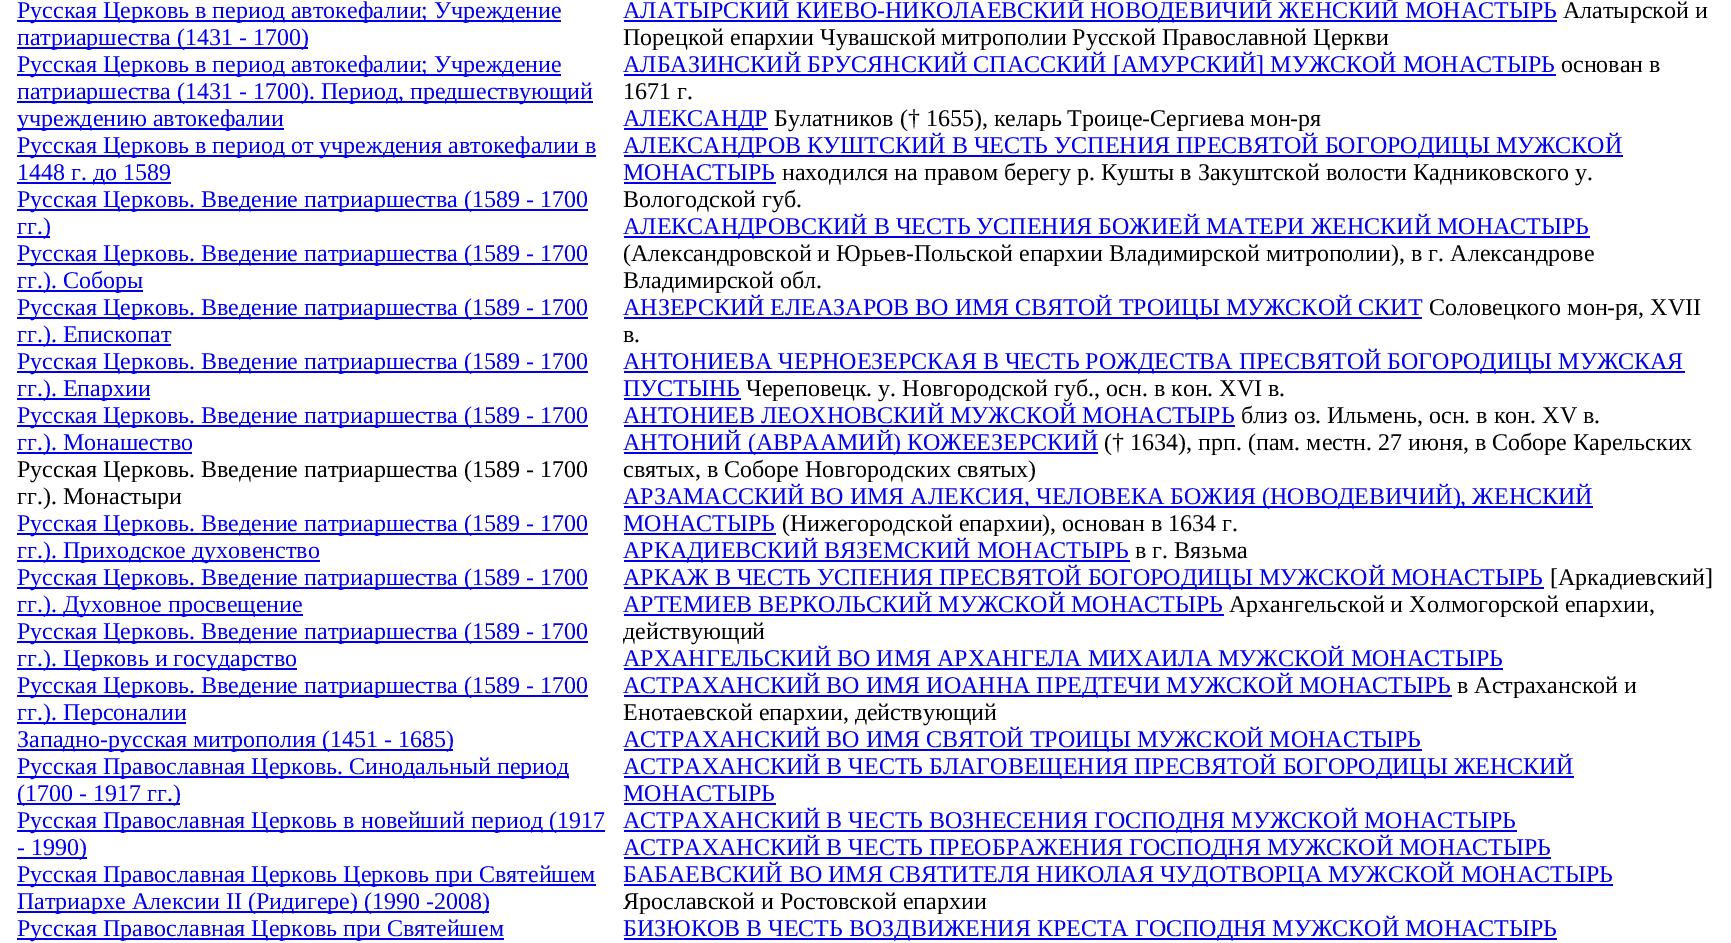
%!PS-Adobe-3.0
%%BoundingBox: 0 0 1731 943
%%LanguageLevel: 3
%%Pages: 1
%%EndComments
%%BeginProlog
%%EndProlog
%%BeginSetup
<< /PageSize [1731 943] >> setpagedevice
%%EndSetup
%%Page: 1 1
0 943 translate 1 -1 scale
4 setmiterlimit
1 setgray
0 0 1731 943 rectfill
0 0 0.933 setrgbcolor
17 20 544 2 rectfill
17 47 291 2 rectfill
17 74 544 2 rectfill
17 101 576 2 rectfill
17 128 267 2 rectfill
17 155 579 2 rectfill
17 182 154 2 rectfill
17 209 571 2 rectfill
17 236 33 2 rectfill
17 263 571 2 rectfill
17 290 126 2 rectfill
17 317 571 2 rectfill
17 344 154 2 rectfill
17 371 571 2 rectfill
17 398 133 2 rectfill
17 425 571 2 rectfill
17 452 175 2 rectfill
17 533 571 2 rectfill
17 560 303 2 rectfill
17 587 571 2 rectfill
17 614 286 2 rectfill
17 641 571 2 rectfill
17 668 280 2 rectfill
17 695 571 2 rectfill
17 722 169 2 rectfill
17 749 436 2 rectfill
17 776 552 2 rectfill
17 803 163 2 rectfill
17 830 588 2 rectfill
17 857 70 2 rectfill
17 884 579 2 rectfill
17 911 472 2 rectfill
17 938 487 2 rectfill
624 20 933 2 rectfill
624 74 932 2 rectfill
624 128 144 2 rectfill
624 155 999 2 rectfill
624 182 152 2 rectfill
624 236 966 2 rectfill
624 317 798 2 rectfill
624 371 1061 2 rectfill
624 398 117 2 rectfill
624 425 611 2 rectfill
624 452 474 2 rectfill
624 506 969 2 rectfill
624 533 152 2 rectfill
624 560 506 2 rectfill
624 587 920 2 rectfill
624 614 600 2 rectfill
624 668 879 2 rectfill
624 695 828 2 rectfill
624 749 798 2 rectfill
624 776 950 2 rectfill
624 803 152 2 rectfill
624 830 893 2 rectfill
624 857 927 2 rectfill
624 884 989 2 rectfill
624 938 933 2 rectfill
/LiberationSerif-Regular [24 0 0 -24 0 0] selectfont
17 18 moveto (Русская Церковь в период автокефалии; Учреждение) show
17 45 moveto (патриаршества \(1431 - 1700\)) show
17 72 moveto (Русская Церковь в период автокефалии; Учреждение) show
17 99 moveto (патриаршества \(1431 - 1700\). Период, предшествующий) show
17 126 moveto (учреждению автокефалии) show
17 153 moveto (Русская Церковь в период от учреждения автокефалии в) show
17 180 moveto (1448 г. до 1589) show
17 207 moveto (Русская Церковь. Введение патриаршества \(1589 - 1700) show
17 234 moveto (гг.\)) show
17 261 moveto (Русская Церковь. Введение патриаршества \(1589 - 1700) show
17 288 moveto (гг.\). Соборы) show
17 315 moveto (Русская Церковь. Введение патриаршества \(1589 - 1700) show
17 342 moveto (гг.\). Епископат) show
17 369 moveto (Русская Церковь. Введение патриаршества \(1589 - 1700) show
17 396 moveto (гг.\). Епархии) show
17 423 moveto (Русская Церковь. Введение патриаршества \(1589 - 1700) show
17 450 moveto (гг.\). Монашество) show
0 setgray
17 477 moveto (Русская Церковь. Введение патриаршества \(1589 - 1700) show
17 504 moveto (гг.\). Монастыри) show
0 0 0.933 setrgbcolor
17 531 moveto (Русская Церковь. Введение патриаршества \(1589 - 1700) show
17 558 moveto (гг.\). Приходское духовенство) show
17 585 moveto (Русская Церковь. Введение патриаршества \(1589 - 1700) show
17 612 moveto (гг.\). Духовное просвещение) show
17 639 moveto (Русская Церковь. Введение патриаршества \(1589 - 1700) show
17 666 moveto (гг.\). Церковь и государство) show
17 693 moveto (Русская Церковь. Введение патриаршества \(1589 - 1700) show
17 720 moveto (гг.\). Персоналии) show
17 747 moveto (Западно-русская митрополия \(1451 - 1685\)) show
17 774 moveto (Русская Православная Церковь. Синодальный период) show
17 801 moveto (\(1700 - 1917 гг.\)) show
17 828 moveto (Русская Православная Церковь в новейший период \(1917) show
17 855 moveto (- 1990\)) show
17 882 moveto (Русская Православная Церковь Церковь при Святейшем) show
17 909 moveto (Патриархе Алексии II \(Ридигере\) \(1990 -2008\)) show
17 936 moveto (Русская Православная Церковь при Святейшем) show
623 18 moveto (АЛАТЫРСКИЙ КИЕВО-НИКОЛАЕВСКИЙ НОВОДЕВИЧИЙ ЖЕНСКИЙ МОНАСТЫРЬ) show
0 setgray
1563 18 moveto (Алатырской и) show
623 45 moveto (Порецкой епархии Чувашской митрополии Русской Православной Церкви) show
0 0 0.933 setrgbcolor
623 72 moveto (АЛБАЗИНСКИЙ БРУСЯНСКИЙ СПАССКИЙ [АМУРСКИЙ] МУЖСКОЙ МОНАСТЫРЬ) show
0 setgray
1561 72 moveto (основан в) show
623 99 moveto (1671 г.) show
0 0 0.933 setrgbcolor
623 126 moveto (АЛЕКСАНДР) show
0 setgray
774 126 moveto (Булатников \(† 1655\), келарь Троице-Сергиева мон-ря) show
0 0 0.933 setrgbcolor
623 153 moveto (АЛЕКСАНДРОВ КУШТСКИЙ В ЧЕСТЬ УСПЕНИЯ ПРЕСВЯТОЙ БОГОРОДИЦЫ МУЖСКОЙ) show
623 180 moveto (МОНАСТЫРЬ) show
0 setgray
782 180 moveto (находился на правом берегу р. Кушты в Закуштской волости Кадниковского у.) show
623 207 moveto (Вологодской губ.) show
0 0 0.933 setrgbcolor
623 234 moveto (АЛЕКСАНДРОВСКИЙ В ЧЕСТЬ УСПЕНИЯ БОЖИЕЙ МАТЕРИ ЖЕНСКИЙ МОНАСТЫРЬ) show
0 setgray
623 261 moveto (\(Александровской и Юрьев-Польской епархии Владимирской митрополии\), в г. Александрове) show
623 288 moveto (Владимирской обл.) show
0 0 0.933 setrgbcolor
623 315 moveto (АНЗЕРСКИЙ ЕЛЕАЗАРОВ ВО ИМЯ СВЯТОЙ ТРОИЦЫ МУЖСКОЙ СКИТ) show
0 setgray
1429 315 moveto (Соловецкого мон-ря, XVII) show
623 342 moveto (в.) show
0 0 0.933 setrgbcolor
623 369 moveto (АНТОНИЕВА ЧЕРНОЕЗЕРСКАЯ В ЧЕСТЬ РОЖДЕСТВА ПРЕСВЯТОЙ БОГОРОДИЦЫ МУЖСКАЯ) show
623 396 moveto (ПУСТЫНЬ) show
0 setgray
746 396 moveto (Череповецк. у. Новгородской губ., осн. в кон. XVI в.) show
0 0 0.933 setrgbcolor
623 423 moveto (АНТОНИЕВ ЛЕОХНОВСКИЙ МУЖСКОЙ МОНАСТЫРЬ) show
0 setgray
1241 423 moveto (близ оз. Ильмень, осн. в кон. XV в.) show
0 0 0.933 setrgbcolor
623 450 moveto (АНТОНИЙ \(АВРААМИЙ\) КОЖЕЕЗЕРСКИЙ) show
0 setgray
1104 450 moveto (\(† 1634\), прп. \(пам. местн. 27 июня, в Соборе Карельских) show
623 477 moveto (святых, в Соборе Новгородских святых\)) show
0 0 0.933 setrgbcolor
623 504 moveto (АРЗАМАССКИЙ ВО ИМЯ АЛЕКСИЯ, ЧЕЛОВЕКА БОЖИЯ \(НОВОДЕВИЧИЙ\), ЖЕНСКИЙ) show
623 531 moveto (МОНАСТЫРЬ) show
0 setgray
782 531 moveto (\(Нижегородской епархии\), основан в 1634 г.) show
0 0 0.933 setrgbcolor
623 558 moveto (АРКАДИЕВСКИЙ ВЯЗЕМСКИЙ МОНАСТЫРЬ) show
0 setgray
1135 558 moveto (в г. Вязьма) show
0 0 0.933 setrgbcolor
623 585 moveto (АРКАЖ В ЧЕСТЬ УСПЕНИЯ ПРЕСВЯТОЙ БОГОРОДИЦЫ МУЖСКОЙ МОНАСТЫРЬ) show
0 setgray
1550 585 moveto ([Аркадиевский]) show
0 0 0.933 setrgbcolor
623 612 moveto (АРТЕМИЕВ ВЕРКОЛЬСКИЙ МУЖСКОЙ МОНАСТЫРЬ) show
0 setgray
1229 612 moveto (Архангельской и Холмогорской епархии,) show
623 639 moveto (действующий) show
0 0 0.933 setrgbcolor
623 666 moveto (АРХАНГЕЛЬСКИЙ ВО ИМЯ АРХАНГЕЛА МИХАИЛА МУЖСКОЙ МОНАСТЫРЬ) show
623 693 moveto (АСТРАХАНСКИЙ ВО ИМЯ ИОАННА ПРЕДТЕЧИ МУЖСКОЙ МОНАСТЫРЬ) show
0 setgray
1457 693 moveto (в Астраханской и) show
623 720 moveto (Енотаевской епархии, действующий) show
0 0 0.933 setrgbcolor
623 747 moveto (АСТРАХАНСКИЙ ВО ИМЯ СВЯТОЙ ТРОИЦЫ МУЖСКОЙ МОНАСТЫРЬ) show
623 774 moveto (АСТРАХАНСКИЙ В ЧЕСТЬ БЛАГОВЕЩЕНИЯ ПРЕСВЯТОЙ БОГОРОДИЦЫ ЖЕНСКИЙ) show
623 801 moveto (МОНАСТЫРЬ) show
623 828 moveto (АСТРАХАНСКИЙ В ЧЕСТЬ ВОЗНЕСЕНИЯ ГОСПОДНЯ МУЖСКОЙ МОНАСТЫРЬ) show
623 855 moveto (АСТРАХАНСКИЙ В ЧЕСТЬ ПРЕОБРАЖЕНИЯ ГОСПОДНЯ МУЖСКОЙ МОНАСТЫРЬ) show
623 882 moveto (БАБАЕВСКИЙ ВО ИМЯ СВЯТИТЕЛЯ НИКОЛАЯ ЧУДОТВОРЦА МУЖСКОЙ МОНАСТЫРЬ) show
0 setgray
623 909 moveto (Ярославской и Ростовской епархии) show
0 0 0.933 setrgbcolor
623 936 moveto (БИЗЮКОВ В ЧЕСТЬ ВОЗДВИЖЕНИЯ КРЕСТА ГОСПОДНЯ МУЖСКОЙ МОНАСТЫРЬ) show
showpage
%%EOF
